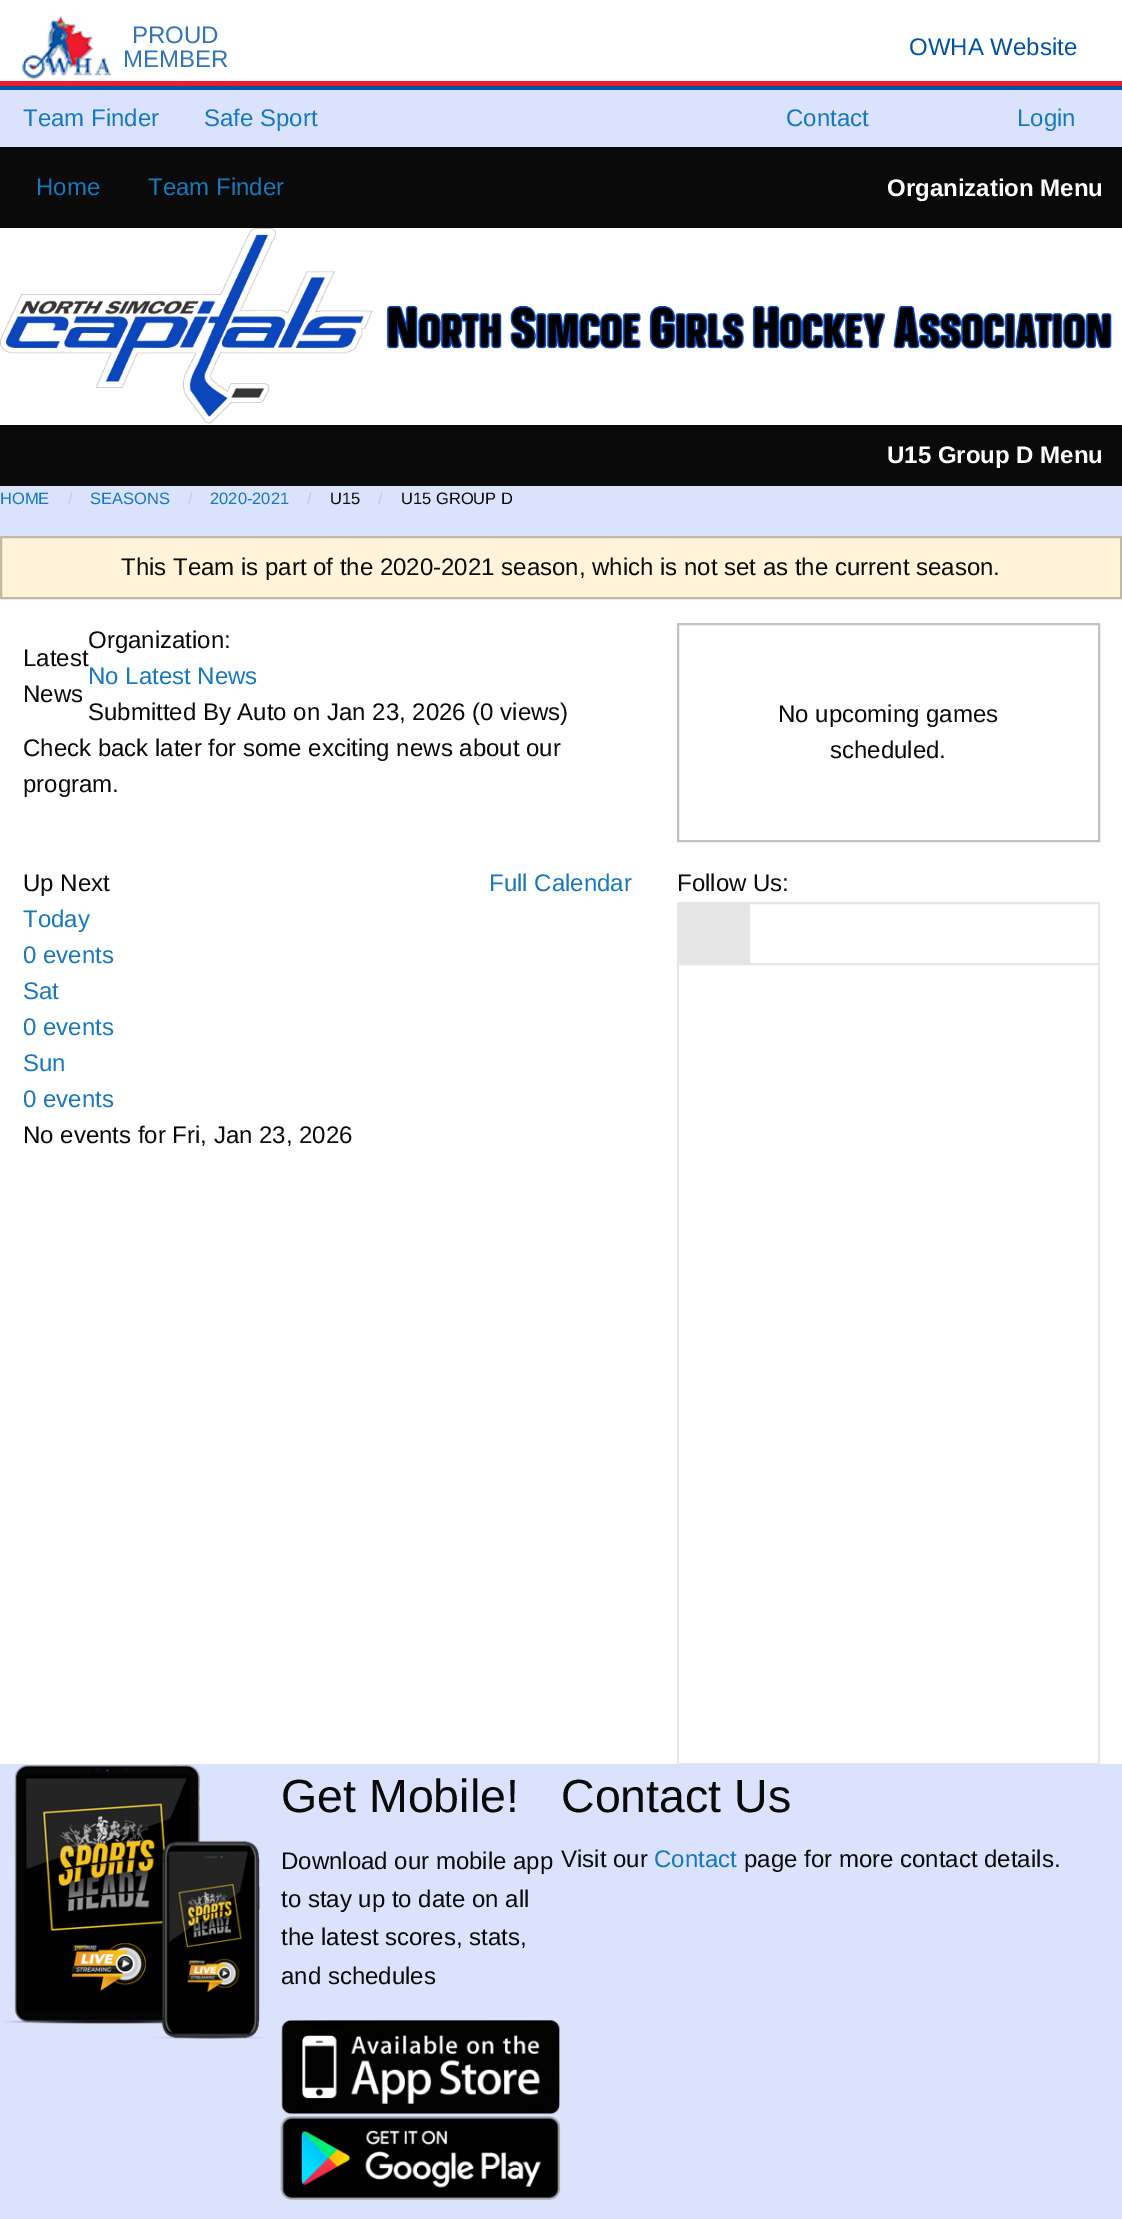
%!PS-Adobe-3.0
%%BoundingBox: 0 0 1122 2219
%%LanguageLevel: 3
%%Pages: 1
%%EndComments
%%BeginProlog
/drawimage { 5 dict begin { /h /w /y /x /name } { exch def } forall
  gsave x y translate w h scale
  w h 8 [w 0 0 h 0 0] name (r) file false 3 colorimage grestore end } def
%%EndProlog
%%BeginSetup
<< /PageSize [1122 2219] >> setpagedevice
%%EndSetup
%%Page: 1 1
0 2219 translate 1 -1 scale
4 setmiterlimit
1 setgray
0 0 1122 2219 rectfill
(images/1.raw) 22 15 89 65 drawimage
0.929 0.106 0.176 setrgbcolor
0 81 1122 5 rectfill
0 0.325 0.624 setrgbcolor
0 86 1122 4 rectfill
0.859 0.886 0.984 setrgbcolor
0 90 1122 2129 rectfill
0.039 setgray
0 147 1122 81 rectfill
1 setgray
0 228 1122 197 rectfill
(images/2.raw) 0 228 373 196 drawimage
(images/3.raw) 386 305 726 44 drawimage
0.039 setgray
0 425 1122 61 rectfill
1 setgray
0 599 1122 1165 rectfill
1 0.953 0.851 setrgbcolor
newpath 1 537 moveto 1121 537 lineto 1121 598 lineto 1 598 lineto closepath gsave fill grestore
0.761 0.725 0.647 setrgbcolor
2 setlinewidth
stroke
0.761 setgray
678 624 421 217 rectstroke
0.902 setgray
678 903 421 61 rectstroke
679 904 71 59 rectfill
1098 965 2 799 rectfill
677 1763 423 2 rectfill
677 965 2 799 rectfill
(images/4.raw) 4 1764 260 275 drawimage
(images/5.raw) 281 2020 279 95 drawimage
(images/6.raw) 280 2116 281 84 drawimage
/LiberationSans-Regular [24 0 0 -24 0 0] selectfont
0.2 0.459 0.698 setrgbcolor
132 43 moveto (PROUD) show
123 67 moveto (MEMBER) show
0 0.325 0.624 setrgbcolor
909 55 moveto (OWHA Website) show
0.09 0.475 0.729 setrgbcolor
23 126 moveto (Team Finder) show
204 126 moveto (Safe Sport) show
786 126 moveto (Contact) show
1017 126 moveto (Login) show
36 195 moveto (Home) show
148 195 moveto (Team Finder) show
/LiberationSans-Bold [24 0 0 -24 0 0] selectfont
0.996 setgray
887 196 moveto (Organization Menu) show
887 463 moveto (U15 Group D Menu) show
/LiberationSans-Regular [16.5 0 0 -16.5 0 0] selectfont
0.09 0.475 0.729 setrgbcolor
0 504 moveto (HOME) show
0.792 setgray
68 504 moveto (/) show
0.09 0.475 0.729 setrgbcolor
90 504 moveto (SEASONS) show
0.792 setgray
188 504 moveto (/) show
0.09 0.475 0.729 setrgbcolor
210 504 moveto (2020-2021) show
0.792 setgray
307 504 moveto (/) show
0.039 setgray
330 504 moveto (U15) show
0.792 setgray
378 504 moveto (/) show
0.039 setgray
401 504 moveto (U15 GROUP D) show
/LiberationSans-Regular [24 0 0 -24 0 0] selectfont
121 575 moveto (This Team is part of the 2020-2021 season, which is not set as the current season.) show
23 666 moveto (Latest) show
23 702 moveto (News) show
88 648 moveto (Organization:) show
0.09 0.475 0.729 setrgbcolor
88 684 moveto (No Latest News) show
0.039 setgray
88 720 moveto (Submitted By Auto on Jan 23, 2026 \(0 views\)) show
23 756 moveto (Check back later for some exciting news about our) show
23 792 moveto (program.) show
778 722 moveto (No upcoming games) show
830 758 moveto (scheduled.) show
23 891 moveto (Up Next) show
0.09 0.475 0.729 setrgbcolor
489 891 moveto (Full Calendar) show
23 927 moveto (Today) show
23 963 moveto (0 events) show
23 999 moveto (Sat) show
23 1035 moveto (0 events) show
23 1071 moveto (Sun) show
23 1107 moveto (0 events) show
0.039 setgray
23 1143 moveto (No events for Fri, Jan 23, 2026) show
677 891 moveto (Follow Us:) show
/LiberationSans-Regular [46.5 0 0 -46.5 0 0] selectfont
281 1812 moveto (Get Mobile!) show
/LiberationSans-Regular [24 0 0 -24 0 0] selectfont
281 1869 moveto (Download our mobile app) show
281 1907 moveto (to stay up to date on all) show
281 1945 moveto (the latest scores, stats,) show
281 1984 moveto (and schedules) show
/LiberationSans-Regular [46.5 0 0 -46.5 0 0] selectfont
561 1812 moveto (Contact Us) show
/LiberationSans-Regular [24 0 0 -24 0 0] selectfont
561 1867 moveto (Visit our) show
0.09 0.475 0.729 setrgbcolor
654 1867 moveto (Contact) show
0.039 setgray
744 1867 moveto (page for more contact details.) show
showpage
%%EOF
